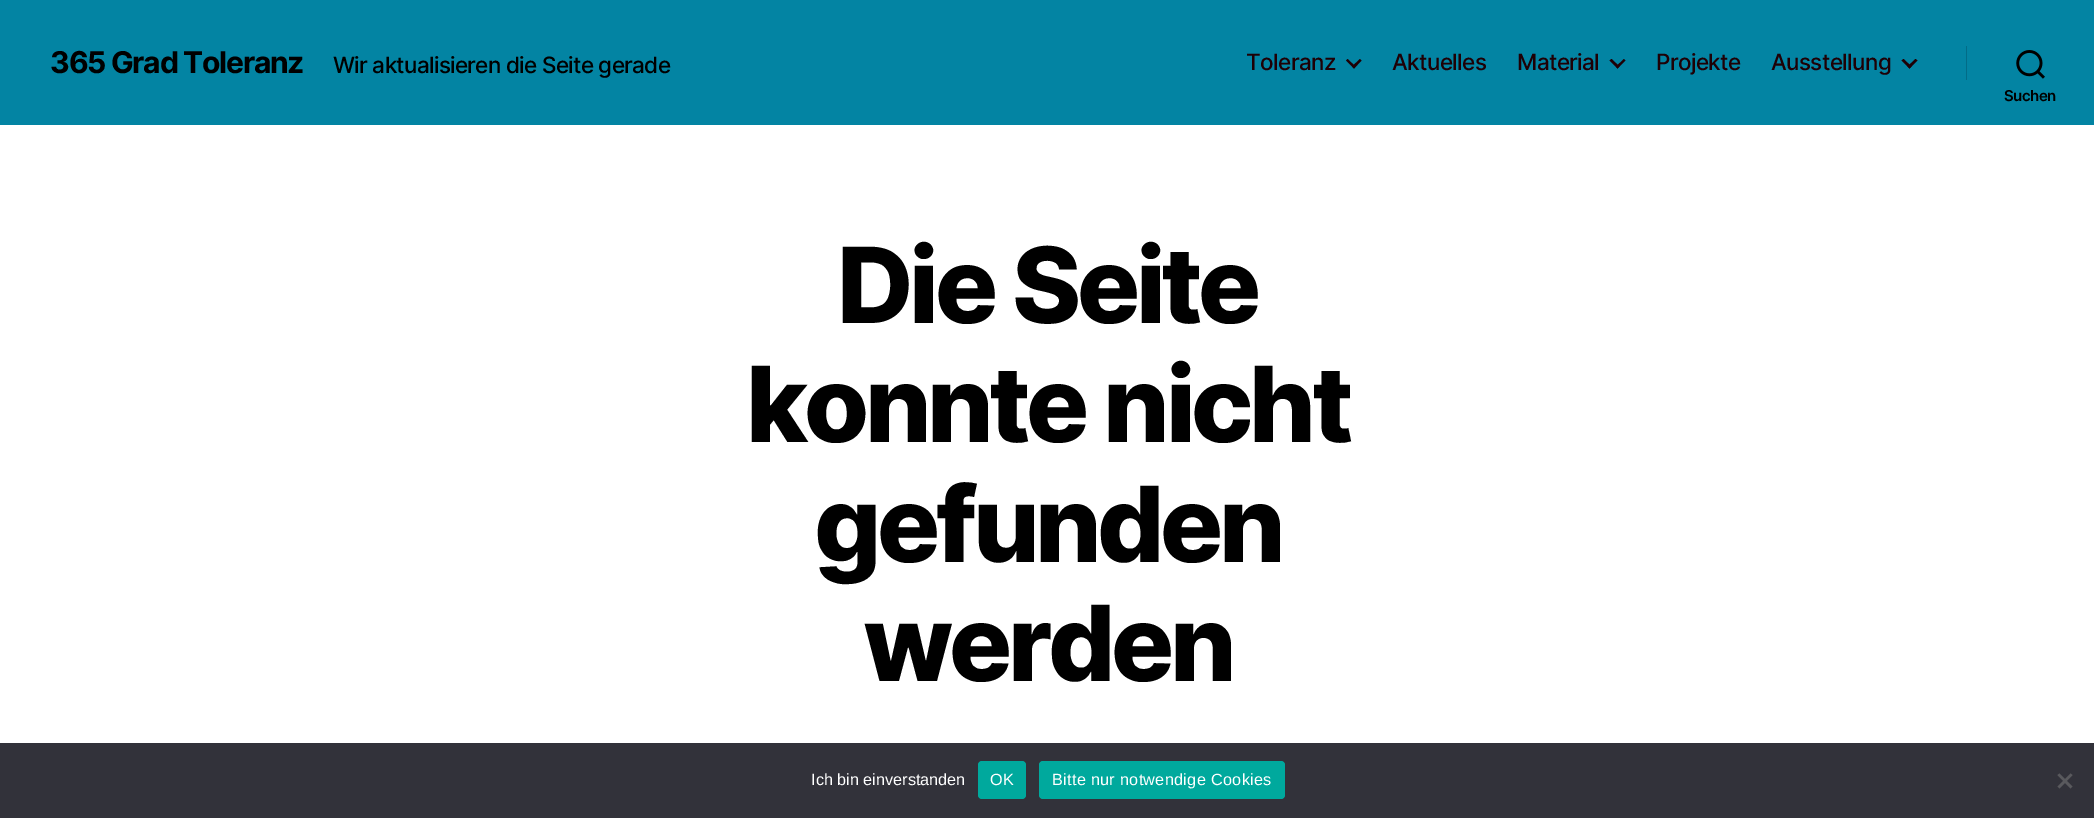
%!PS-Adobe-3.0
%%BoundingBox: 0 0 2094 818
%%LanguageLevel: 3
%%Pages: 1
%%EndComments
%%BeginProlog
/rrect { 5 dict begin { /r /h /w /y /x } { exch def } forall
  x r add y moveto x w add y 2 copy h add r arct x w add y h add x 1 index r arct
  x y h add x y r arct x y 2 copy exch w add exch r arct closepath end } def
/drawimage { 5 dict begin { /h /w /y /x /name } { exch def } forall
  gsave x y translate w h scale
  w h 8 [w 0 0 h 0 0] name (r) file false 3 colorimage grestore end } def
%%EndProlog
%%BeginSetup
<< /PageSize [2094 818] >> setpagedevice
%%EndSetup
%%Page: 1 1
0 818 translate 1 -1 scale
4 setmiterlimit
1 setgray
0 0 2094 818 rectfill
0.012 0.518 0.639 setrgbcolor
0 0 2094 125 rectfill
0.118 0 0.024 setrgbcolor
newpath 1346 60.5 moveto 1347.5 59 lineto 1355.5 66.5 lineto 1354 68.5 lineto closepath fill
newpath 1352 66.5 moveto 1360 59 lineto 1361.5 60.5 lineto 1354 68.5 lineto closepath fill
newpath 1609.5 60.5 moveto 1611.5 59 lineto 1619.5 66.5 lineto 1617.5 68.5 lineto closepath fill
newpath 1616 66.5 moveto 1624 59 lineto 1625.5 60.5 lineto 1617.5 68.5 lineto closepath fill
newpath 1901.5 60.5 moveto 1903.5 59 lineto 1911.5 66.5 lineto 1909.5 68.5 lineto closepath fill
newpath 1907.5 66.5 moveto 1915.5 59 lineto 1917.5 60.5 lineto 1909.5 68.5 lineto closepath fill
0.008 0.424 0.529 setrgbcolor
1966 46 1 34 rectfill
(images/1.raw) 2016 50 29 29 drawimage
0.196 0.196 0.227 setrgbcolor
0 743 2094 75 rectfill
0 0.663 0.616 setrgbcolor
978 761 48 38 4 rrect fill
1039 761 246 38 4 rrect fill
0.349 0.349 0.365 setrgbcolor
newpath 2070.5 773.5 moveto 2072.5 775 lineto 2059.5 788.5 lineto 2057.5 786.5 lineto closepath fill
newpath 2057.5 775 moveto 2059.5 773.5 lineto 2072.5 786.5 lineto 2070.5 788.5 lineto closepath fill
/Inter-Bold [30 0 0 -30 0 0] selectfont
0 setgray
50 73 moveto -1.25 0 (365 Grad Toleranz) ashow
/Inter-Medium [22.5 0 0 -22.5 0 0] selectfont
333 73 moveto -0.7 0 (Wir aktualisieren die Seite gerade) ashow
0.118 0 0.024 setrgbcolor
1246 70 moveto -0.6 0 (Toleranz) ashow
1392 70 moveto -0.6 0 (Aktuelles) ashow
1517 70 moveto -0.6 0 (Material) ashow
1656 70 moveto -0.6 0 (Projekte) ashow
1771 70 moveto -0.6 0 (Ausstellung) ashow
/Inter-SemiBold [15 0 0 -15 0 0] selectfont
0 setgray
2004 101 moveto -0.5 0 (Suchen) ashow
/Inter-ExtraBold [105 0 0 -105 0 0] selectfont
837 323 moveto -4.4 0 (Die Seite) ashow
746 442 moveto -4.4 0 (konnte nicht) ashow
814 562 moveto -4.4 0 (gefunden) ashow
863 681 moveto -4.4 0 (werden) ashow
/LiberationSans-Regular [16.25 0 0 -16.25 0 0] selectfont
1 setgray
811 785 moveto (Ich bin einverstanden) show
990 785 moveto 0.3 0 (OK) ashow
1052 785 moveto 0.3 0 (Bitte nur notwendige Cookies) ashow
showpage
%%EOF
